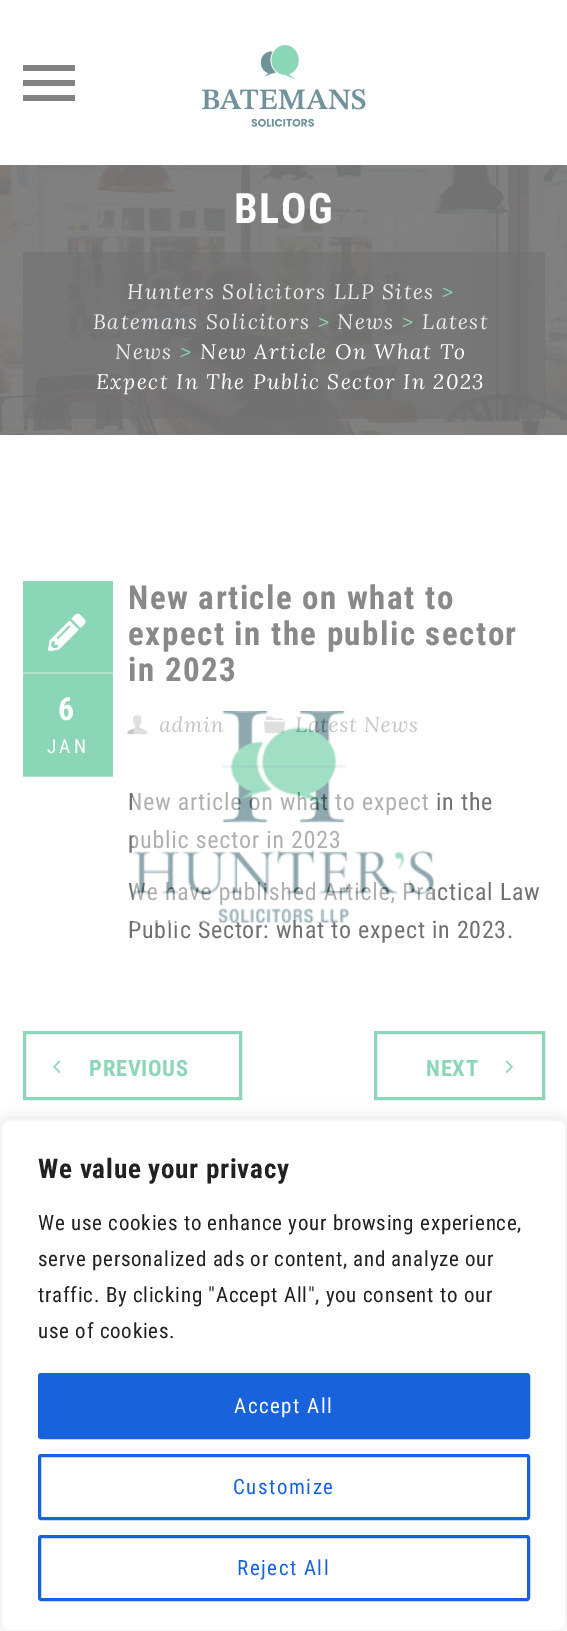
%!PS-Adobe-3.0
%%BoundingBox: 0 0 567 1631
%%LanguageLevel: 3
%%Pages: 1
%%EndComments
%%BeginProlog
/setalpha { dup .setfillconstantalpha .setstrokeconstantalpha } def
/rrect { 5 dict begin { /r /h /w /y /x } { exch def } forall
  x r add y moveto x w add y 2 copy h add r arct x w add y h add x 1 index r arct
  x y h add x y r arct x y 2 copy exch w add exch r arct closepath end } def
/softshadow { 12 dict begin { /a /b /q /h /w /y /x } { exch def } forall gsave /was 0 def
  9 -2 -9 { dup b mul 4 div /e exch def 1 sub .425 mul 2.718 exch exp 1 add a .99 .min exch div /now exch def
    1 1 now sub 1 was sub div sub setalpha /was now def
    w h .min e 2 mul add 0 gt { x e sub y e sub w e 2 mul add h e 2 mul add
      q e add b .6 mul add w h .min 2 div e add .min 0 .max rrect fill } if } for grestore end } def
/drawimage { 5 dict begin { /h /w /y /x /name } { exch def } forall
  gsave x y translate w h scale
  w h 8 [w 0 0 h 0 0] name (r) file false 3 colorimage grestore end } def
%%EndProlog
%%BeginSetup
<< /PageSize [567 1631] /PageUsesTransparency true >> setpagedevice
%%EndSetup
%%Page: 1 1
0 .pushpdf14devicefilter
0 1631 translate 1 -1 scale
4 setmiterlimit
1 setgray
0 0 567 1631 rectfill
0.514 setgray
23 80 52 6 rectfill
23 65 52 6 rectfill
23 95 52 6 rectfill
(images/1.raw) 202 44 164 83 drawimage
(images/2.raw) 0 165 567 270 drawimage
0.54 setalpha
0.439 setgray
23 252 522 167 rectfill
1 setalpha
0.541 0.839 0.714 setrgbcolor
23 581 90 195 rectfill
0.686 0.89 0.808 setrgbcolor
23 776 90 1 rectfill
23 672 90 2 rectfill
(images/3.raw) 48 613 38 39 drawimage
(images/4.raw) 127 715 21 20 drawimage
(images/5.raw) 264 716 21 18 drawimage
0.541 0.839 0.714 setrgbcolor
3 setlinewidth
24.5 1032.5 216 66 rectstroke
(images/6.raw) 53 1060 8 13 drawimage
375.5 1032.5 168 66 rectstroke
(images/7.raw) 505 1060 8 13 drawimage
0.675 0.671 0.671 setrgbcolor
0 1118 567 513 9 7.5 0.3 softshadow
1 setgray
1 1120 565 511 8 rrect gsave fill grestore
0.957 setgray
2 setlinewidth
stroke
0.094 0.388 0.863 setrgbcolor
39.5 1374.5 489 63 1.5 rrect gsave fill grestore
3 setlinewidth
stroke
39.5 1455.5 489 63 1.5 rrect stroke
39.5 1536.5 489 63 1.5 rrect stroke
/RobotoCondensed-Bold [42 0 0 -42 0 0] selectfont
1 setgray
234 223 moveto 1.5 0 (BLOG) ashow
/Lora-Italic [21 0 0 -21 0 0] selectfont
0.922 setgray
127 299 moveto 1.5 0 (Hunters Solicitors LLP Sites) ashow
0.541 0.839 0.714 setrgbcolor
442 299 moveto 1.5 0 (>) ashow
0.922 setgray
93 329 moveto 1.5 0 (Batemans Solicitors) ashow
0.541 0.839 0.714 setrgbcolor
318 329 moveto 1.5 0 (>) ashow
0.922 setgray
337 329 moveto 1.5 0 (News) ashow
0.541 0.839 0.714 setrgbcolor
402 329 moveto 1.5 0 (>) ashow
0.922 setgray
422 329 moveto 1.5 0 (Latest) ashow
115 359 moveto 1.5 0 (News) ashow
0.541 0.839 0.714 setrgbcolor
180 359 moveto 1.5 0 (>) ashow
1 setgray
200 359 moveto 1.5 0 (New Article On What To) ashow
96 389 moveto 1.5 0 (Expect In The Public Sector In 2023) ashow
/RobotoCondensed-Bold [32 0 0 -32 0 0] selectfont
58 720 moveto 3 0 (6) ashow
/RobotoCondensed-Regular [19.5 0 0 -19.5 0 0] selectfont
47 753 moveto 3 0 (JAN) ashow
/RobotoCondensed-Bold [33 0 0 -33 0 0] selectfont
0.537 setgray
128 609 moveto 1.5 0 (New article on what to) ashow
128 645 moveto 1.5 0 (expect in the public sector) ashow
128 681 moveto 1.5 0 (in 2023) ashow
/Lora-Italic [21 0 0 -21 0 0] selectfont
0.588 setgray
159 732 moveto 0.75 0 (admin) ashow
295 732 moveto 0.75 0 (Latest News) ashow
/RobotoCondensed-Regular [24 0 0 -24 0 0] selectfont
0.439 setgray
128 810 moveto 0.75 0 (New article on what to expect in the) ashow
128 848 moveto 0.75 0 (public sector in 2023) ashow
128 900 moveto 0.75 0 (We have published Article, Practical Law) ashow
128 938 moveto 0.75 0 (Public Sector: what to expect in 2023.) ashow
/RobotoCondensed-Bold [22.5 0 0 -22.5 0 0] selectfont
0.541 0.839 0.714 setrgbcolor
89 1076 moveto 0.75 0 (PREVIOUS) ashow
426 1076 moveto 0.75 0 (NEXT) ashow
(images/8.raw) 133 711 301 212 drawimage
/RobotoCondensed-Bold [27 0 0 -27 0 0] selectfont
0.129 setgray
38 1178 moveto 0.75 0 (We value your privacy) ashow
/RobotoCondensed-Regular [21 0 0 -21 0 0] selectfont
38 1230 moveto 0.75 0 (We use cookies to enhance your browsing experience,) ashow
38 1266 moveto 0.75 0 (serve personalized ads or content, and analyze our) ashow
38 1302 moveto 0.75 0 (traffic. By clicking "Accept All", you consent to our) ashow
38 1338 moveto 0.75 0 (use of cookies.) ashow
1 setgray
234 1413 moveto 1.5 0 (Accept All) ashow
0.094 0.388 0.863 setrgbcolor
233 1494 moveto 1.5 0 (Customize) ashow
237 1575 moveto 1.5 0 (Reject All) ashow
.poppdf14devicefilter showpage
%%EOF
